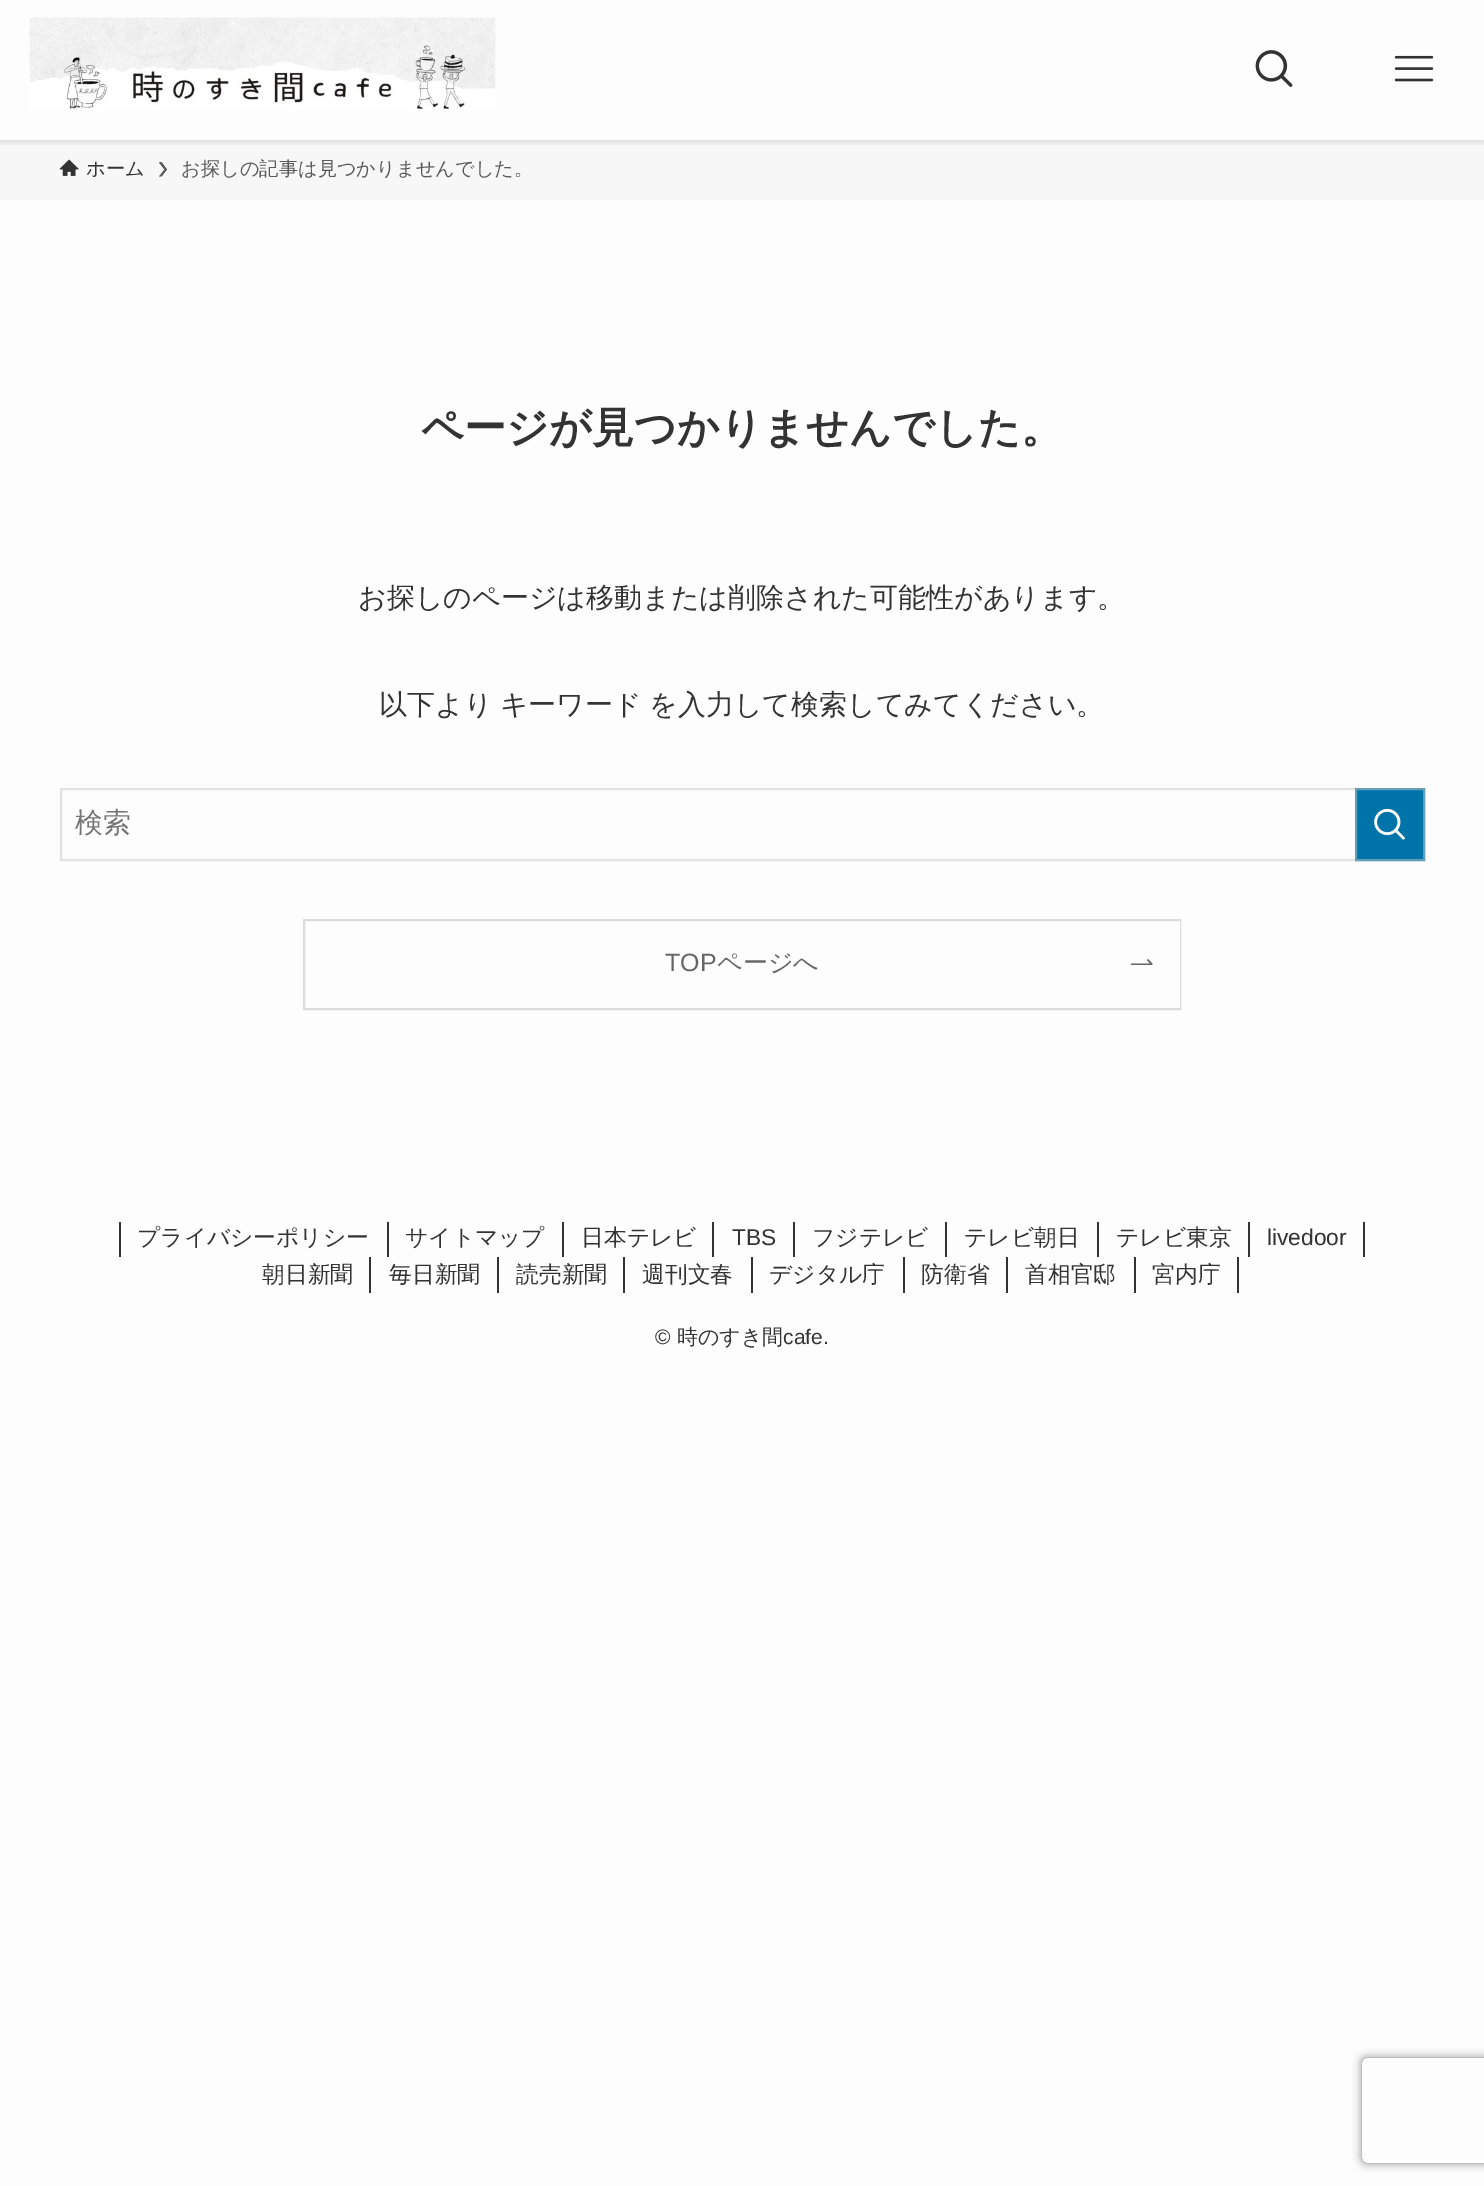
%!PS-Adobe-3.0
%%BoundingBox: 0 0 1484 2186
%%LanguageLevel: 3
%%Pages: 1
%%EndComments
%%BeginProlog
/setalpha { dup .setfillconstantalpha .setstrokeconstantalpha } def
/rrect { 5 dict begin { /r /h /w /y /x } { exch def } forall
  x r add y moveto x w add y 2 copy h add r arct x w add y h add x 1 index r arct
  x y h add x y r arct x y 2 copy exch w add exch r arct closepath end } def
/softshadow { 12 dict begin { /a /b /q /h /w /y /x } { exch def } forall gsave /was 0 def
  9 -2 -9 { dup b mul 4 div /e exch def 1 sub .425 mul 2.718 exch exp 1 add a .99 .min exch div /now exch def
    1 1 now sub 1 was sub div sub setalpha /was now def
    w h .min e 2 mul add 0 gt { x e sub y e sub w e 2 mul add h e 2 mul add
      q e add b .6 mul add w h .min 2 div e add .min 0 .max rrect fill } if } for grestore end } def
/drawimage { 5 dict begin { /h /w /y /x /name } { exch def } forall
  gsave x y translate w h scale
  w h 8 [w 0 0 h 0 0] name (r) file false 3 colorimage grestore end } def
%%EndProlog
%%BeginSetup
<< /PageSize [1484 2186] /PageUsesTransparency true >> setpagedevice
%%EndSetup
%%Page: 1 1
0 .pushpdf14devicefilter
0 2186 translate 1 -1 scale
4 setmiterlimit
0.992 setgray
0 0 1484 2186 rectfill
0.969 setgray
0 140 1484 60 rectfill
gsave
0 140 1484 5 rectclip
0 setgray
0 2 1484 140 0 3.5 0.12 softshadow
grestore
(images/1.raw) 29 17 467 93 drawimage
(images/2.raw) 1255 50 38 37 drawimage
(images/3.raw) 1394 55 40 27 drawimage
(images/4.raw) 59 159 20 17 drawimage
0.353 setgray
newpath 161.5 162 moveto 159 162.5 lineto 164.5 169.5 lineto 159 176.5 lineto 161.5 176.5 lineto 167 169.5 lineto closepath fill
0.89 setgray
2 setlinewidth
61 789 1363 71 rectstroke
0 0.451 0.659 setrgbcolor
newpath 1356 789 moveto 1424 789 lineto 1424 860 lineto 1356 860 lineto closepath gsave fill grestore
0.392 0.616 0.722 setrgbcolor
stroke
(images/5.raw) 1374 808 31 32 drawimage
0.863 setgray
304 920 876 89 rectstroke
1 setgray
1179 921 1 87 rectfill
0.4 setgray
newpath 1152 965 moveto 1131 965 lineto 1131 963.5 lineto 1150 963.5 lineto 1147 960 lineto 1148 959 lineto 1152.5 963.5 lineto closepath fill
0.2 setgray
387 1222 2 35 rectfill
119 1222 2 35 rectfill
562 1222 2 35 rectfill
712 1222 2 35 rectfill
793 1222 2 35 rectfill
945 1222 2 35 rectfill
1097 1222 2 35 rectfill
1248 1222 2 35 rectfill
1363 1222 2 35 rectfill
369 1257 2 36 rectfill
497 1257 2 36 rectfill
623 1257 2 36 rectfill
751 1257 2 36 rectfill
903 1257 2 36 rectfill
1006 1257 2 36 rectfill
1134 1257 2 36 rectfill
1237 1257 2 36 rectfill
gsave
newpath 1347 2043 moveto 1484 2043 lineto 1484 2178 lineto 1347 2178 lineto closepath 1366 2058 moveto 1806 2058 lineto 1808 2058 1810 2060 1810 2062 curveto 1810 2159 lineto 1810 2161 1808 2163 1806 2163 curveto 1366 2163 lineto 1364 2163 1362 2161 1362 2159 curveto 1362 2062 lineto 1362 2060 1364 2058 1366 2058 curveto closepath eoclip newpath
0.502 setgray
1362 2058 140 105 4 4.5 1 softshadow
grestore
/WenQuanYiZenHei-Medium [19.25 0 0 -19.25 0 0] selectfont
86 175 moveto (ホーム) show
0.353 setgray
181 175 moveto (お探しの記事は見つかりませんでした。) show
/WenQuanYiZenHei-Bold [42 0 0 -42 0 0] selectfont
0.2 setgray
421 442 moveto (ページが見つかりませんでした。) show
/WenQuanYiZenHei-Medium [28 0 0 -28 0 0] selectfont
358 607 moveto (お探しのページは移動または削除された可能性があります。) show
379 714 moveto -1 0 32 (以下より キーワード を入力して検索してみてください。) widthshow
0.459 setgray
75 832 moveto (検索) show
/LiberationSans-Regular [25 0 0 -25 0 0] selectfont
0.4 setgray
665 971 moveto (TOP) show
/WenQuanYiZenHei-Medium [25 0 0 -25 0 0] selectfont
717 971 moveto (ページへ) show
/WenQuanYiZenHei-Medium [22.75 0 0 -22.75 0 0] selectfont
0.2 setgray
137 1245 moveto (プライバシーポリシー) show
405 1245 moveto (サイトマップ) show
581 1245 moveto (日本テレビ) show
/LiberationSans-Regular [22.75 0 0 -22.75 0 0] selectfont
732 1245 moveto (TBS) show
/WenQuanYiZenHei-Medium [22.75 0 0 -22.75 0 0] selectfont
812 1245 moveto (フジテレビ) show
964 1245 moveto (テレビ朝日) show
1116 1245 moveto (テレビ東京) show
/LiberationSans-Regular [22.75 0 0 -22.75 0 0] selectfont
1267 1245 moveto (livedoor) show
/WenQuanYiZenHei-Medium [22.75 0 0 -22.75 0 0] selectfont
262 1282 moveto (朝日新聞) show
389 1282 moveto (毎日新聞) show
516 1282 moveto (読売新聞) show
642 1282 moveto (週刊文春) show
769 1282 moveto (デジタル庁) show
921 1282 moveto (防衛省) show
1025 1282 moveto (首相官邸) show
1152 1282 moveto (宮内庁) show
/LiberationSans-Regular [21 0 0 -21 0 0] selectfont
655 1344 moveto (©) show
/WenQuanYiZenHei-Medium [21 0 0 -21 0 0] selectfont
677 1344 moveto (時のすき間) show
/LiberationSans-Regular [21 0 0 -21 0 0] selectfont
783 1344 moveto (cafe.) show
.poppdf14devicefilter showpage
%%EOF
